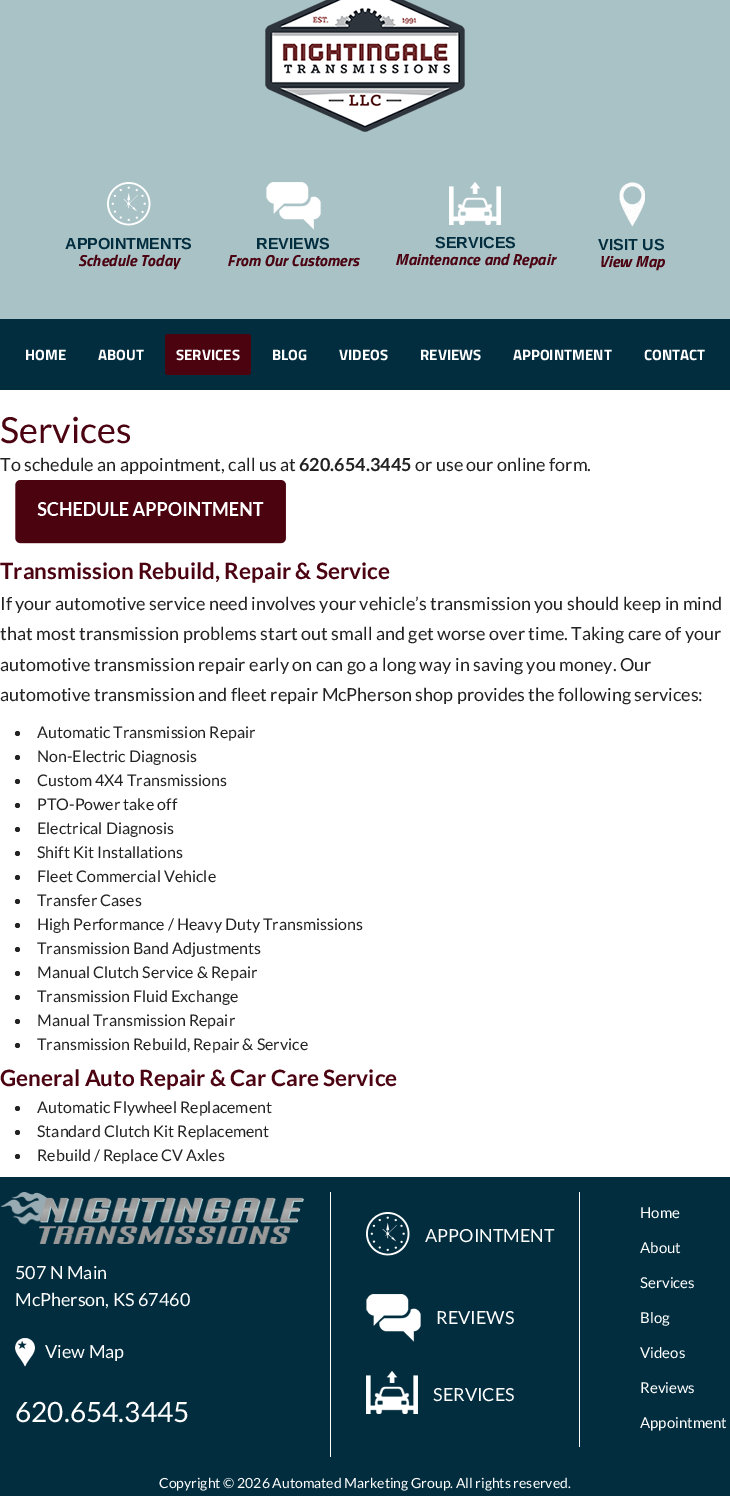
%!PS-Adobe-3.0
%%BoundingBox: 0 0 730 1496
%%LanguageLevel: 3
%%Pages: 1
%%EndComments
%%BeginProlog
/rrect { 5 dict begin { /r /h /w /y /x } { exch def } forall
  x r add y moveto x w add y 2 copy h add r arct x w add y h add x 1 index r arct
  x y h add x y r arct x y 2 copy exch w add exch r arct closepath end } def
/drawimage { 5 dict begin { /h /w /y /x /name } { exch def } forall
  gsave x y translate w h scale
  w h 8 [w 0 0 h 0 0] name (r) file false 3 colorimage grestore end } def
%%EndProlog
%%BeginSetup
<< /PageSize [730 1496] >> setpagedevice
%%EndSetup
%%Page: 1 1
0 1496 translate 1 -1 scale
4 setmiterlimit
1 setgray
0 0 730 1496 rectfill
0.663 0.761 0.776 setrgbcolor
0 0 730 319 rectfill
(images/1.raw) 265 0 200 132 drawimage
(images/2.raw) 107 182 44 44 drawimage
(images/3.raw) 266 182 55 48 drawimage
(images/4.raw) 449 182 52 43 drawimage
(images/5.raw) 619 182 26 45 drawimage
0.008 0.176 0.243 setrgbcolor
0 319 730 71 rectfill
0.294 0.012 0.059 setrgbcolor
165 334 86 41 3 rrect fill
(images/6.raw) 15 480 271 64 drawimage
0.133 setgray
newpath 17.5 733.5 2.5 0 360 arc closepath fill
newpath 17.5 757.5 2.5 0 360 arc closepath fill
newpath 17.5 781.5 2.5 0 360 arc closepath fill
newpath 17.5 805.5 2.5 0 360 arc closepath fill
newpath 17.5 829.5 2.5 0 360 arc closepath fill
newpath 17.5 853.5 2.5 0 360 arc closepath fill
newpath 17.5 877.5 2.5 0 360 arc closepath fill
newpath 17.5 901.5 2.5 0 360 arc closepath fill
newpath 17.5 925.5 2.5 0 360 arc closepath fill
newpath 17.5 949.5 2.5 0 360 arc closepath fill
newpath 17.5 973.5 2.5 0 360 arc closepath fill
newpath 17.5 997.5 2.5 0 360 arc closepath fill
newpath 17.5 1021.5 2.5 0 360 arc closepath fill
newpath 17.5 1045.5 2.5 0 360 arc closepath fill
newpath 17.5 1108.5 2.5 0 360 arc closepath fill
newpath 17.5 1132.5 2.5 0 360 arc closepath fill
newpath 17.5 1156.5 2.5 0 360 arc closepath fill
0.008 0.176 0.243 setrgbcolor
0 1177 730 319 rectfill
1 setgray
330 1192 1 265 rectfill
(images/7.raw) 0 1192 304 52 drawimage
(images/8.raw) 15 1338 20 29 drawimage
(images/9.raw) 366 1212 44 44 drawimage
(images/10.raw) 366 1294 55 48 drawimage
(images/11.raw) 366 1371 52 43 drawimage
579 1192 1 255 rectfill
/LiberationSans-Bold [16 0 0 -16 0 0] selectfont
0.004 0.176 0.243 setrgbcolor
65 249 moveto (APPOINTMENTS) show
/TitilliumWeb-BoldItalic [16 0 0 -16 0 0] selectfont
0.294 0.008 0.067 setrgbcolor
78 266 moveto (Schedule Today) show
/LiberationSans-Bold [16 0 0 -16 0 0] selectfont
0.004 0.176 0.243 setrgbcolor
256 249 moveto (REVIEWS) show
/TitilliumWeb-BoldItalic [16 0 0 -16 0 0] selectfont
0.294 0.008 0.067 setrgbcolor
227 266 moveto (From Our Customers) show
/LiberationSans-Bold [16 0 0 -16 0 0] selectfont
0.004 0.176 0.243 setrgbcolor
435 248 moveto (SERVICES) show
/TitilliumWeb-BoldItalic [16 0 0 -16 0 0] selectfont
0.294 0.008 0.067 setrgbcolor
395 265 moveto (Maintenance and Repair) show
/LiberationSans-Bold [16 0 0 -16 0 0] selectfont
0.004 0.176 0.243 setrgbcolor
598 250 moveto (VISIT US) show
/TitilliumWeb-BoldItalic [16 0 0 -16 0 0] selectfont
0.294 0.008 0.067 setrgbcolor
599 267 moveto (View Map) show
/TitilliumWeb-Bold [15 0 0 -15 0 0] selectfont
1 setgray
25 360 moveto (HOME) show
98 360 moveto (ABOUT) show
176 360 moveto (SERVICES) show
272 360 moveto (BLOG) show
339 360 moveto (VIDEOS) show
420 360 moveto (REVIEWS) show
513 360 moveto (APPOINTMENT) show
644 360 moveto (CONTACT) show
/Lato-Regular [36 0 0 -36 0 0] selectfont
0.294 0.008 0.067 setrgbcolor
0 443 moveto (Services) show
/Lato-Regular [18 0 0 -18 0 0] selectfont
0.133 setgray
0 471 moveto (To schedule an appointment, call us at) show
/Lato-Bold [18 0 0 -18 0 0] selectfont
299 471 moveto (620.654.3445) show
/Lato-Regular [18 0 0 -18 0 0] selectfont
415 471 moveto (or use our online form.) show
/Lato-Bold [22.5 0 0 -22.5 0 0] selectfont
0.294 0.008 0.067 setrgbcolor
0 579 moveto (Transmission Rebuild, Repair & Service) show
/Lato-Regular [18 0 0 -18 0 0] selectfont
0.133 setgray
0 610 moveto (If your automotive service need involves your vehicle’s transmission you should keep in mind) show
0 640 moveto (that most transmission problems start out small and get worse over time. Taking care of your) show
0 671 moveto (automotive transmission repair early on can go a long way in saving you money. Our) show
0 701 moveto (automotive transmission and fleet repair McPherson shop provides the following services:) show
/Lato-Regular [16 0 0 -16 0 0] selectfont
37 738 moveto (Automatic Transmission Repair) show
37 762 moveto (Non-Electric Diagnosis) show
37 786 moveto (Custom 4X4 Transmissions) show
37 810 moveto (PTO-Power take off) show
37 834 moveto (Electrical Diagnosis) show
37 858 moveto (Shift Kit Installations) show
37 882 moveto (Fleet Commercial Vehicle) show
37 906 moveto (Transfer Cases) show
37 930 moveto (High Performance / Heavy Duty Transmissions) show
37 954 moveto (Transmission Band Adjustments) show
37 978 moveto (Manual Clutch Service & Repair) show
37 1002 moveto (Transmission Fluid Exchange) show
37 1026 moveto (Manual Transmission Repair) show
37 1050 moveto (Transmission Rebuild, Repair & Service) show
/Lato-Bold [22.5 0 0 -22.5 0 0] selectfont
0.294 0.008 0.067 setrgbcolor
0 1086 moveto (General Auto Repair & Car Care Service) show
/Lato-Regular [16 0 0 -16 0 0] selectfont
0.133 setgray
37 1113 moveto (Automatic Flywheel Replacement) show
37 1137 moveto (Standard Clutch Kit Replacement) show
37 1161 moveto (Rebuild / Replace CV Axles) show
/Lato-Regular [18 0 0 -18 0 0] selectfont
1 setgray
15 1279 moveto (507 N Main) show
15 1306 moveto (McPherson, KS 67460) show
45 1358 moveto (View Map) show
/Lato-Regular [28 0 0 -28 0 0] selectfont
15 1422 moveto (620.654.3445) show
/Lato-Regular [18 0 0 -18 0 0] selectfont
425 1242 moveto (APPOINTMENT) show
436 1324 moveto (REVIEWS) show
433 1401 moveto (SERVICES) show
/Lato-Regular [15 0 0 -15 0 0] selectfont
640 1218 moveto (Home) show
640 1253 moveto (About) show
640 1288 moveto (Services) show
640 1323 moveto (Blog) show
640 1358 moveto (Videos) show
640 1393 moveto (Reviews) show
640 1428 moveto (Appointment) show
/Lato-Regular [14 0 0 -14 0 0] selectfont
159 1488 moveto (Copyright © 2026 Automated Marketing Group. All rights reserved.) show
showpage
%%EOF
